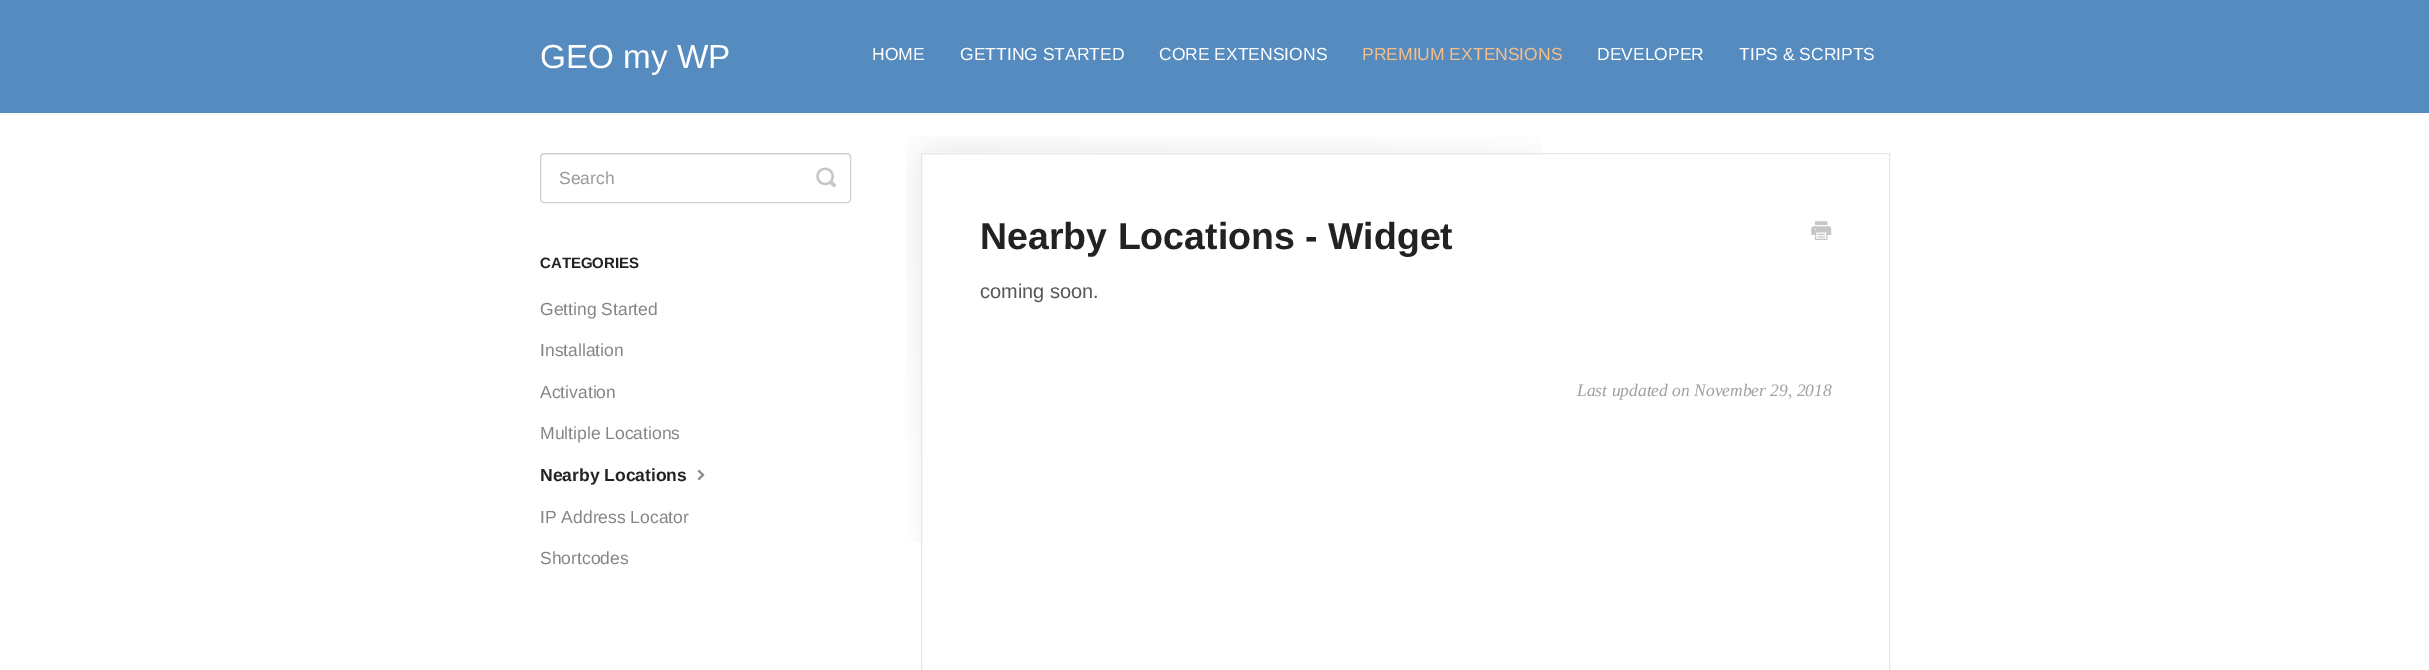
%!PS-Adobe-3.0
%%BoundingBox: 0 0 2429 670
%%LanguageLevel: 3
%%Pages: 1
%%EndComments
%%BeginProlog
/rrect { 5 dict begin { /r /h /w /y /x } { exch def } forall
  x r add y moveto x w add y 2 copy h add r arct x w add y h add x 1 index r arct
  x y h add x y r arct x y 2 copy exch w add exch r arct closepath end } def
/drawimage { 5 dict begin { /h /w /y /x /name } { exch def } forall
  gsave x y translate w h scale
  w h 8 [w 0 0 h 0 0] name (r) file false 3 colorimage grestore end } def
%%EndProlog
%%BeginSetup
<< /PageSize [2429 670] >> setpagedevice
%%EndSetup
%%Page: 1 1
0 670 translate 1 -1 scale
4 setmiterlimit
1 setgray
0 0 2429 670 rectfill
0.337 0.545 0.749 setrgbcolor
0 0 2429 113 rectfill
0.925 setgray
newpath 544 155 moveto 848 155 lineto 849 155 850 156 850 158 curveto 850 156 lineto 850 155 849 154 848 154 curveto 544 154 lineto 542 154 541 155 541 156 curveto 541 158 lineto 541 156 542 155 544 155 curveto closepath fill
0.816 setgray
540.5 153.5 310 49 3.5 rrect stroke
(images/1.raw) 816 167 21 21 drawimage
(images/2.raw) 697 469 8 12 drawimage
(images/3.raw) 906 136 636 406 drawimage
0.914 0.898 0.898 setrgbcolor
921.5 153.5 968 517 rectstroke
(images/4.raw) 1811 221 21 19 drawimage
/LiberationSans-Regular [33.25 0 0 -33.25 0 0] selectfont
1 setgray
540 68 moveto (GEO my WP) show
/LiberationSans-Regular [17.5 0 0 -17.5 0 0] selectfont
872 60 moveto (HOME) show
960 60 moveto (GETTING STARTED) show
1159 60 moveto (CORE EXTENSIONS) show
0.965 0.749 0.533 setrgbcolor
1362 60 moveto (PREMIUM EXTENSIONS) show
1 setgray
1597 60 moveto (DEVELOPER) show
1739 60 moveto (TIPS & SCRIPTS) show
0.6 setgray
559 184 moveto (Search) show
/LiberationSans-Bold [15 0 0 -15 0 0] selectfont
0.133 setgray
540 268 moveto (CATEGORIES) show
/LiberationSans-Regular [17.5 0 0 -17.5 0 0] selectfont
0.522 setgray
540 315 moveto (Getting Started) show
540 356 moveto (Installation) show
540 398 moveto (Activation) show
540 439 moveto (Multiple Locations) show
/LiberationSans-Bold [17.5 0 0 -17.5 0 0] selectfont
0.133 setgray
540 481 moveto (Nearby Locations) show
/LiberationSans-Regular [17.5 0 0 -17.5 0 0] selectfont
0.522 setgray
540 523 moveto (IP Address Locator) show
540 564 moveto (Shortcodes) show
/LiberationSans-Bold [37.5 0 0 -37.5 0 0] selectfont
0.133 setgray
980 249 moveto (Nearby Locations - Widget) show
/LiberationSans-Regular [20 0 0 -20 0 0] selectfont
0.345 setgray
980 298 moveto (coming soon.) show
/LiberationSerif-Italic [17.5 0 0 -17.5 0 0] selectfont
0.627 setgray
1577 396 moveto (Last updated on November 29, 2018) show
showpage
%%EOF
